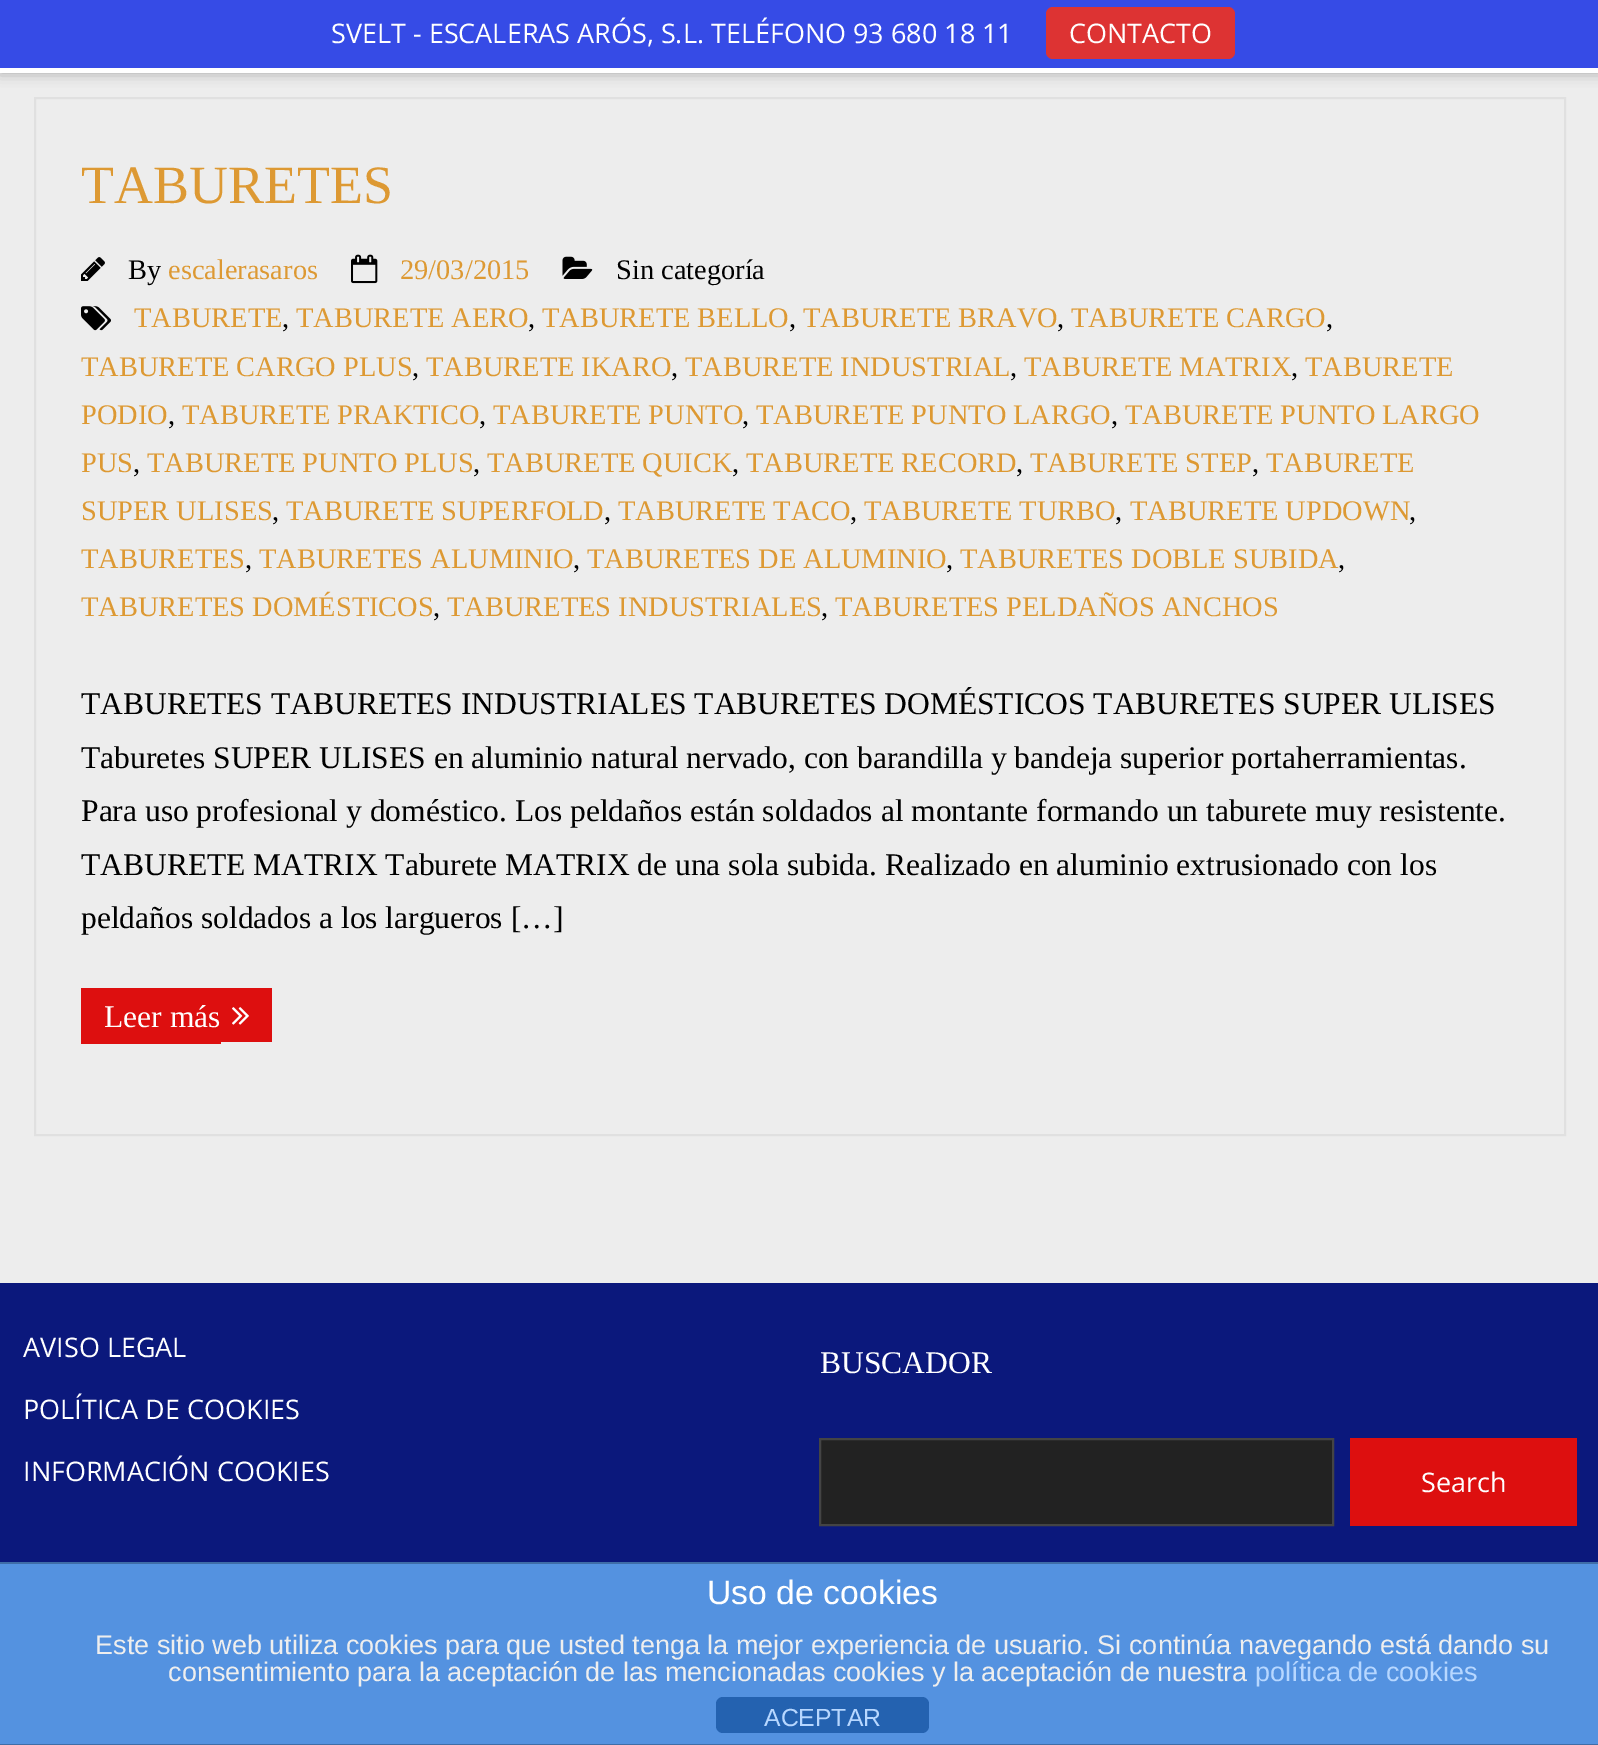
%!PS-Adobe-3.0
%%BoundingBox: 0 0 1598 1745
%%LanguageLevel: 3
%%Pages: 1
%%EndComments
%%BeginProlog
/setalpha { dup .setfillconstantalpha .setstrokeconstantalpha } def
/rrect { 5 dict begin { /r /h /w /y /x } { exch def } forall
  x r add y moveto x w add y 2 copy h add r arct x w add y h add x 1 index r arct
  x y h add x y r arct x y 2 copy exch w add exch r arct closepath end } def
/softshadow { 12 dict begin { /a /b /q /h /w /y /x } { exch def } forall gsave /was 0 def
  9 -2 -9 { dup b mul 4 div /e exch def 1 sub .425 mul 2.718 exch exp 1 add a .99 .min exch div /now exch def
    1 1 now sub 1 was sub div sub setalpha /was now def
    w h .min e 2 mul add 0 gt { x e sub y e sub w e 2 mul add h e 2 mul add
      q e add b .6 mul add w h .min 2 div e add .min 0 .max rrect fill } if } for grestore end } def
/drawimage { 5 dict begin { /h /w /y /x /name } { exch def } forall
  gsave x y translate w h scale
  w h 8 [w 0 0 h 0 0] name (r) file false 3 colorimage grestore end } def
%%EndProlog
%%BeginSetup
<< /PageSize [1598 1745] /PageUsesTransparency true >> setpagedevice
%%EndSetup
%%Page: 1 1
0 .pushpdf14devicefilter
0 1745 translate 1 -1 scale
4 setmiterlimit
0.929 setgray
0 0 1598 1745 rectfill
0.6 setgray
0 0 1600 72 0 7 1 softshadow
0.212 0.294 0.902 setrgbcolor
0 0 1598 68 rectfill
1 setgray
0 68 1598 5 rectfill
0.867 0.2 0.2 setrgbcolor
1046 7 189 52 7 rrect fill
0.878 setgray
2 setlinewidth
35 98 1530 1037 rectstroke
(images/1.raw) 81 257 24 24 drawimage
(images/2.raw) 351 254 27 30 drawimage
(images/3.raw) 562 256 31 23 drawimage
(images/4.raw) 81 306 30 25 drawimage
0.867 0.059 0.059 setrgbcolor
81 988 140 56 rectfill
221 988 51 54 rectfill
(images/5.raw) 232 1007 17 18 drawimage
0.043 0.094 0.486 setrgbcolor
0 1283 1598 279 rectfill
0.133 setgray
newpath 820 1439 moveto 1333 1439 lineto 1333 1525 lineto 820 1525 lineto closepath gsave fill grestore
0.267 setgray
stroke
0.867 0.059 0.059 setrgbcolor
1350 1438 227 88 rectfill
0.329 0.573 0.878 setrgbcolor
0 1564 1598 180 rectfill
0.247 0.427 0.655 setrgbcolor
0 1562 1598 2 rectfill
0 1744 1598 1 rectfill
0.141 0.384 0.69 setrgbcolor
716 1697 213 36 7 rrect fill
/OpenSans-Regular [27 0 0 -27 0 0] selectfont
1 setgray
331 43 moveto (SVELT - ESCALERAS ARÓS, S.L. TELÉFONO 93 680 18 11) show
1069 43 moveto (CONTACTO) show
/LiberationSerif-Regular [54 0 0 -54 0 0] selectfont
0.867 0.6 0.2 setrgbcolor
81 203 moveto (TABURETES) show
/LiberationSerif-Regular [28.4 0 0 -28.4 0 0] selectfont
0 setgray
128 279 moveto (By) show
0.867 0.6 0.2 setrgbcolor
168 279 moveto (escalerasaros) show
400 279 moveto (29/03/2015) show
0 setgray
616 279 moveto (Sin categoría) show
0.867 0.6 0.2 setrgbcolor
134 327 moveto (TABURETE) show
0 setgray
282 327 moveto (,) show
0.867 0.6 0.2 setrgbcolor
296 327 moveto (TABURETE AERO) show
0 setgray
528 327 moveto (,) show
0.867 0.6 0.2 setrgbcolor
542 327 moveto (TABURETE BELLO) show
0 setgray
789 327 moveto (,) show
0.867 0.6 0.2 setrgbcolor
803 327 moveto (TABURETE BRAVO) show
0 setgray
1057 327 moveto (,) show
0.867 0.6 0.2 setrgbcolor
1071 327 moveto (TABURETE CARGO) show
0 setgray
1326 327 moveto (,) show
0.867 0.6 0.2 setrgbcolor
81 376 moveto (TABURETE CARGO PLUS) show
0 setgray
412 376 moveto (,) show
0.867 0.6 0.2 setrgbcolor
426 376 moveto (TABURETE IKARO) show
0 setgray
671 376 moveto (,) show
0.867 0.6 0.2 setrgbcolor
685 376 moveto (TABURETE INDUSTRIAL) show
0 setgray
1010 376 moveto (,) show
0.867 0.6 0.2 setrgbcolor
1024 376 moveto (TABURETE MATRIX) show
0 setgray
1291 376 moveto (,) show
0.867 0.6 0.2 setrgbcolor
1305 376 moveto (TABURETE) show
81 424 moveto (PODIO) show
0 setgray
168 424 moveto (,) show
0.867 0.6 0.2 setrgbcolor
182 424 moveto (TABURETE PRAKTICO) show
0 setgray
479 424 moveto (,) show
0.867 0.6 0.2 setrgbcolor
493 424 moveto (TABURETE PUNTO) show
0 setgray
742 424 moveto (,) show
0.867 0.6 0.2 setrgbcolor
756 424 moveto (TABURETE PUNTO LARGO) show
0 setgray
1111 424 moveto (,) show
0.867 0.6 0.2 setrgbcolor
1125 424 moveto (TABURETE PUNTO LARGO) show
81 472 moveto (PUS) show
0 setgray
133 472 moveto (,) show
0.867 0.6 0.2 setrgbcolor
147 472 moveto (TABURETE PUNTO PLUS) show
0 setgray
473 472 moveto (,) show
0.867 0.6 0.2 setrgbcolor
487 472 moveto (TABURETE QUICK) show
0 setgray
732 472 moveto (,) show
0.867 0.6 0.2 setrgbcolor
746 472 moveto (TABURETE RECORD) show
0 setgray
1016 472 moveto (,) show
0.867 0.6 0.2 setrgbcolor
1030 472 moveto (TABURETE STEP) show
0 setgray
1252 472 moveto (,) show
0.867 0.6 0.2 setrgbcolor
1266 472 moveto (TABURETE) show
81 520 moveto (SUPER ULISES) show
0 setgray
272 520 moveto (,) show
0.867 0.6 0.2 setrgbcolor
286 520 moveto (TABURETE SUPERFOLD) show
0 setgray
604 520 moveto (,) show
0.867 0.6 0.2 setrgbcolor
618 520 moveto (TABURETE TACO) show
0 setgray
850 520 moveto (,) show
0.867 0.6 0.2 setrgbcolor
864 520 moveto (TABURETE TURBO) show
0 setgray
1115 520 moveto (,) show
0.867 0.6 0.2 setrgbcolor
1130 520 moveto (TABURETE UPDOWN) show
0 setgray
1409 520 moveto (,) show
0.867 0.6 0.2 setrgbcolor
81 568 moveto (TABURETES) show
0 setgray
245 568 moveto (,) show
0.867 0.6 0.2 setrgbcolor
259 568 moveto (TABURETES ALUMINIO) show
0 setgray
573 568 moveto (,) show
0.867 0.6 0.2 setrgbcolor
587 568 moveto (TABURETES DE ALUMINIO) show
0 setgray
946 568 moveto (,) show
0.867 0.6 0.2 setrgbcolor
960 568 moveto (TABURETES DOBLE SUBIDA) show
0 setgray
1338 568 moveto (,) show
0.867 0.6 0.2 setrgbcolor
81 616 moveto (TABURETES DOMÉSTICOS) show
0 setgray
433 616 moveto (,) show
0.867 0.6 0.2 setrgbcolor
447 616 moveto (TABURETES INDUSTRIALES) show
0 setgray
821 616 moveto (,) show
0.867 0.6 0.2 setrgbcolor
835 616 moveto (TABURETES PELDAÑOS ANCHOS) show
/LiberationSerif-Regular [31.5 0 0 -31.5 0 0] selectfont
0 setgray
81 714 moveto (TABURETES TABURETES INDUSTRIALES TABURETES DOMÉSTICOS TABURETES SUPER ULISES) show
81 768 moveto (Taburetes SUPER ULISES en aluminio natural nervado, con barandilla y bandeja superior portaherramientas.) show
81 821 moveto (Para uso profesional y doméstico. Los peldaños están soldados al montante formando un taburete muy resistente.) show
81 875 moveto (TABURETE MATRIX Taburete MATRIX de una sola subida. Realizado en aluminio extrusionado con los) show
81 928 moveto (peldaños soldados a los largueros […]) show
1 setgray
104 1027 moveto (Leer más) show
/OpenSans-Regular [27 0 0 -27 0 0] selectfont
23 1357 moveto (AVISO LEGAL) show
23 1419 moveto (POLÍTICA DE COOKIES) show
23 1481 moveto (INFORMACIÓN COOKIES) show
/LiberationSerif-Regular [31.5 0 0 -31.5 0 0] selectfont
820 1373 moveto (BUSCADOR) show
/OpenSans-Regular [27 0 0 -27 0 0] selectfont
1421 1492 moveto (Search) show
/LiberationSans-Regular [33.75 0 0 -33.75 0 0] selectfont
707 1604 moveto (Uso de cookies) show
/LiberationSans-Regular [27 0 0 -27 0 0] selectfont
0.933 setgray
95 1654 moveto (Este sitio web utiliza cookies para que usted tenga la mejor experiencia de usuario. Si continúa navegando está dando su) show
168 1681 moveto (consentimiento para la aceptación de las mencionadas cookies y la aceptación de nuestra) show
0.718 0.843 1 setrgbcolor
1255 1681 moveto (política de cookies) show
/LiberationSans-Regular [24.75 0 0 -24.75 0 0] selectfont
764 1726 moveto (ACEPTAR) show
.poppdf14devicefilter showpage
%%EOF
